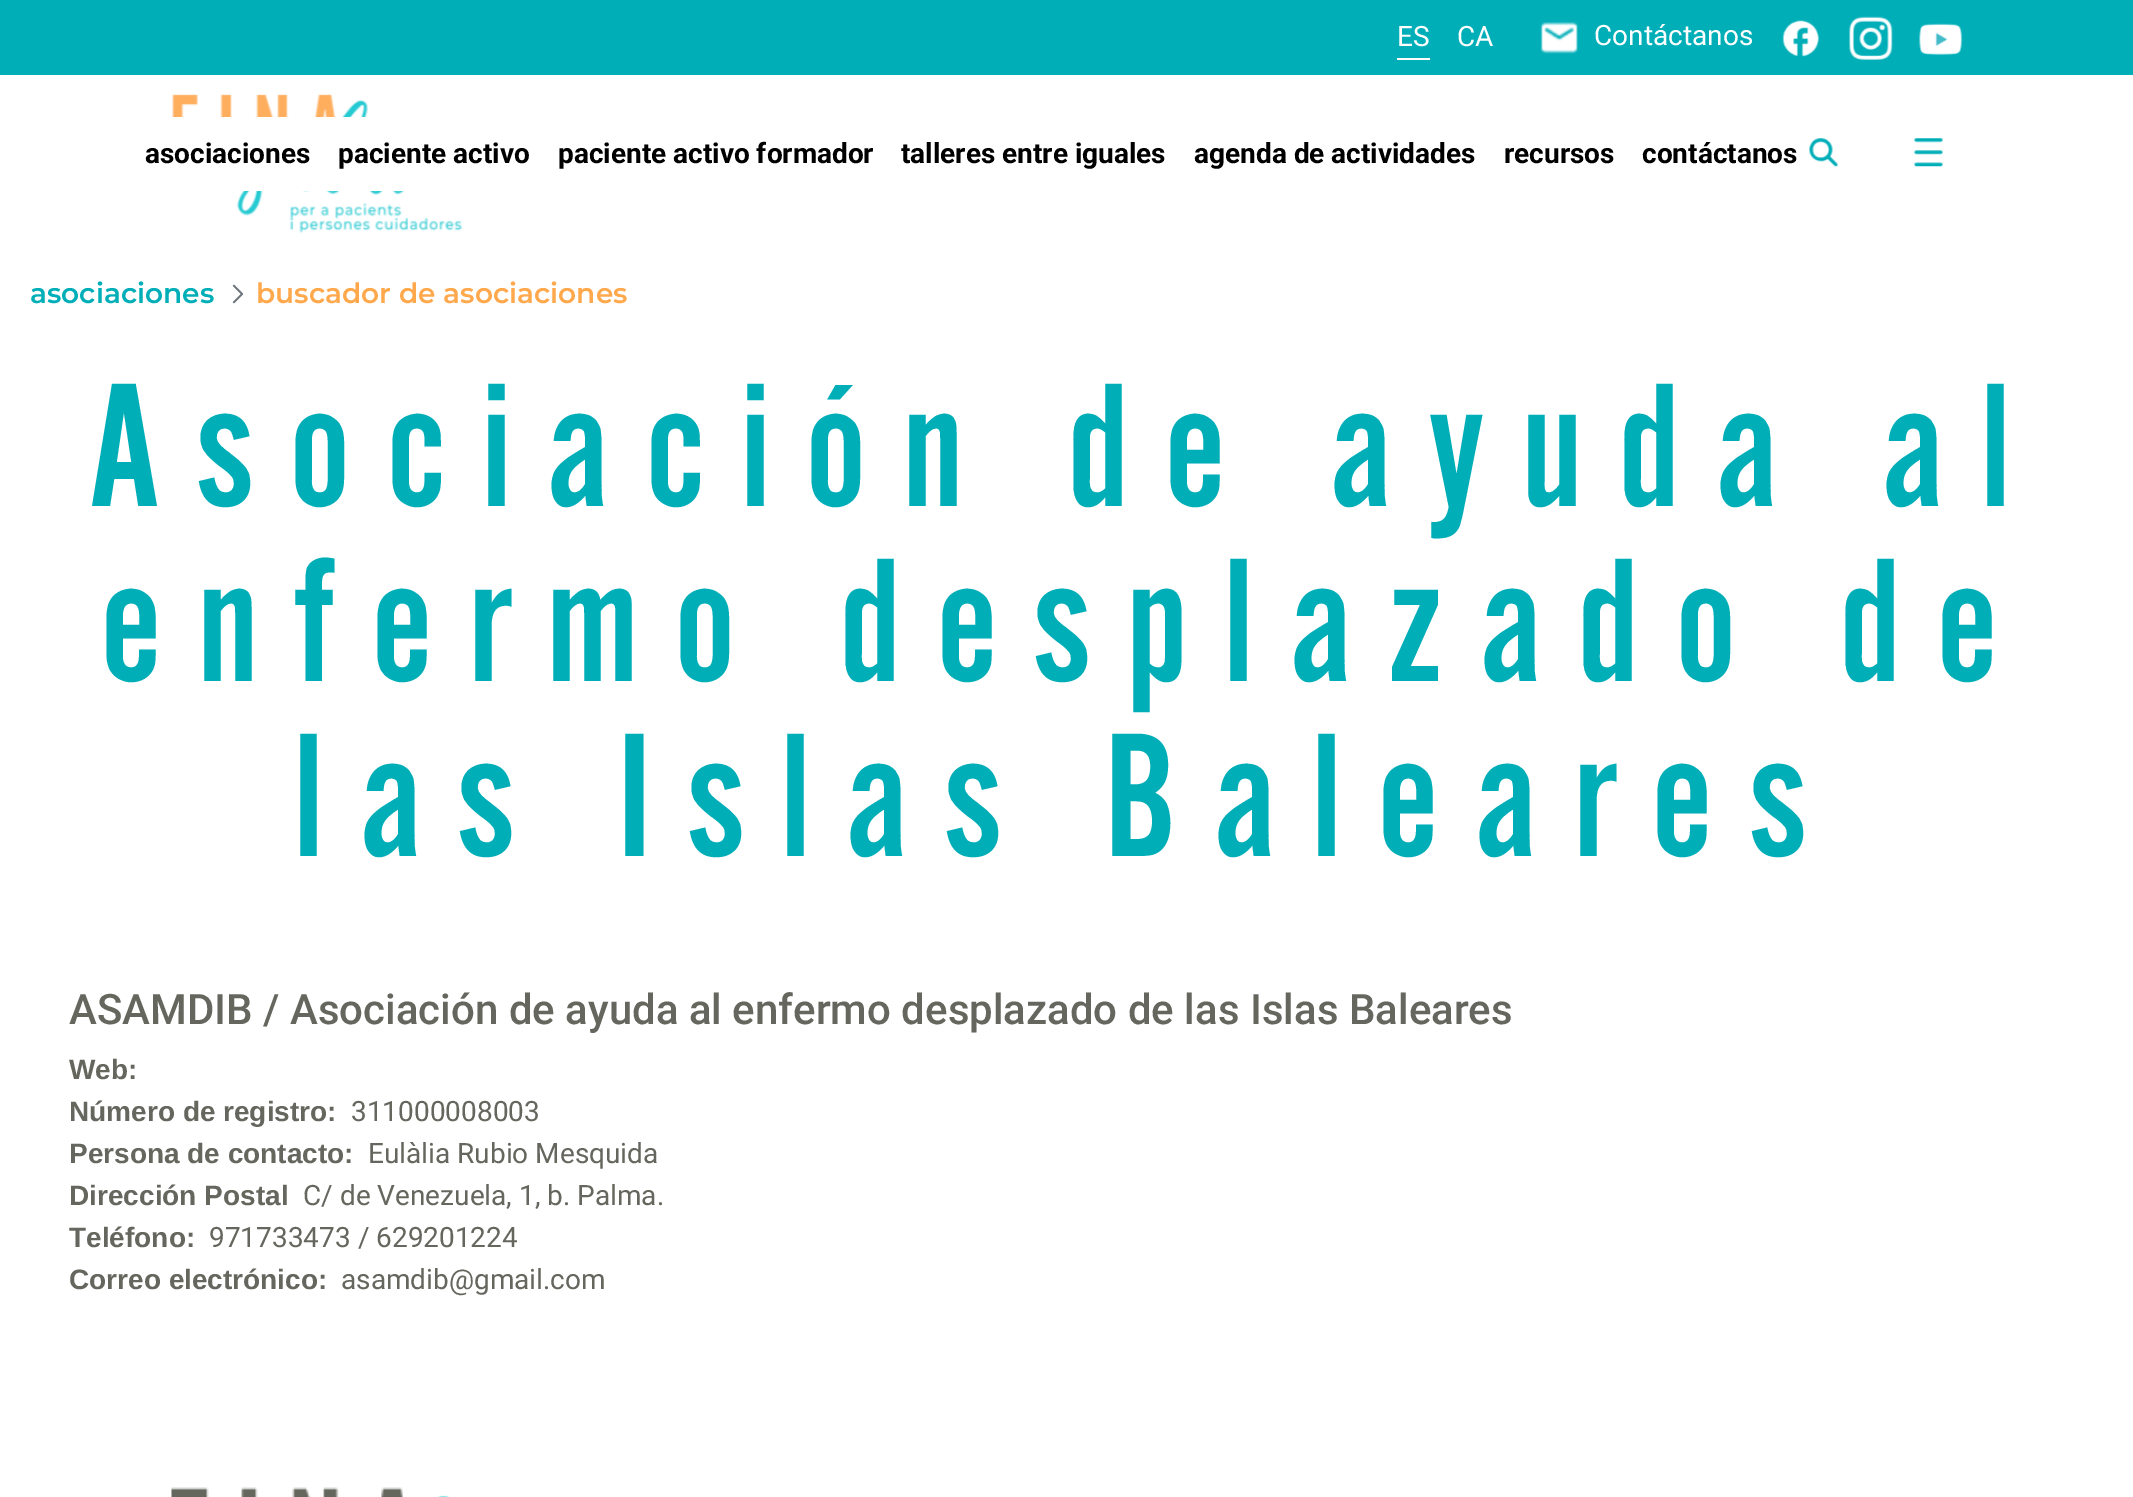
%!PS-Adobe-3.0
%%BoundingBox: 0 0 2133 1497
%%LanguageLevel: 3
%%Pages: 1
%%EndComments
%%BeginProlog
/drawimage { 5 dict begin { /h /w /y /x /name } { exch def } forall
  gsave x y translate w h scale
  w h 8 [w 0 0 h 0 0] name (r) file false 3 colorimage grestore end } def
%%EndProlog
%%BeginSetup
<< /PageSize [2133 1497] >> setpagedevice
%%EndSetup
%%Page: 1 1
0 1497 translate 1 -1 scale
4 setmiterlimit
1 setgray
0 0 2133 1497 rectfill
0 0.682 0.722 setrgbcolor
0 0 2133 75 rectfill
1 setgray
1397 58 33 2 rectfill
(images/1.raw) 1540 21 38 33 drawimage
(images/2.raw) 1782 20 37 37 drawimage
(images/3.raw) 1849 16 44 44 drawimage
(images/4.raw) 1919 23 44 32 drawimage
(images/5.raw) 172 94 290 139 drawimage
(images/6.raw) 1809 138 29 29 drawimage
(images/7.raw) 1914 138 29 29 drawimage
172 117 274 74 rectfill
(images/8.raw) 232 284 12 20 drawimage
(images/9.raw) 171 1487 279 10 drawimage
/Roboto-Regular [28 0 0 -28 0 0] selectfont
1397 46 moveto (ES) show
1457 46 moveto (CA) show
1594 45 moveto (Contáctanos) show
/Roboto-Bold [28 0 0 -28 0 0] selectfont
0 setgray
145 163 moveto (asociaciones) show
338 163 moveto (paciente activo) show
558 163 moveto (paciente activo formador) show
901 163 moveto (talleres entre iguales) show
1194 163 moveto (agenda de actividades) show
1504 163 moveto (recursos) show
1642 163 moveto (contáctanos) show
/Montserrat-SemiBold [28 0 0 -28 0 0] selectfont
0 0.682 0.722 setrgbcolor
30 303 moveto (asociaciones) show
1 0.659 0.298 setrgbcolor
256 303 moveto (buscador de asociaciones) show
/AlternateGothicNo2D-Regular [183.75 0 0 -183.75 0 0] selectfont
0 0.682 0.722 setrgbcolor
87 506 moveto 35 0 (Asociación de ayuda al) ashow
100 681 moveto 35 0 (enfermo desplazado de) ashow
293 856 moveto 35 0 (las Islas Baleares) ashow
/Roboto-Medium [42 0 0 -42 0 0] selectfont
0.396 0.4 0.369 setrgbcolor
69 1024 moveto (ASAMDIB / Asociación de ayuda al enfermo desplazado de las Islas Baleares) show
/LiberationSans-Bold [28 0 0 -28 0 0] selectfont
69 1079 moveto (Web:) show
69 1121 moveto (Número de registro:) show
/Roboto-Regular [28 0 0 -28 0 0] selectfont
351 1121 moveto (311000008003) show
/LiberationSans-Bold [28 0 0 -28 0 0] selectfont
69 1163 moveto (Persona de contacto:) show
/Roboto-Regular [28 0 0 -28 0 0] selectfont
368 1163 moveto (Eulàlia Rubio Mesquida) show
/LiberationSans-Bold [28 0 0 -28 0 0] selectfont
69 1205 moveto (Dirección Postal) show
/Roboto-Regular [28 0 0 -28 0 0] selectfont
303 1205 moveto (C/ de Venezuela, 1, b. Palma.) show
/LiberationSans-Bold [28 0 0 -28 0 0] selectfont
69 1247 moveto (Teléfono:) show
/Roboto-Regular [28 0 0 -28 0 0] selectfont
209 1247 moveto (971733473 / 629201224) show
/LiberationSans-Bold [28 0 0 -28 0 0] selectfont
69 1289 moveto (Correo electrónico:) show
/Roboto-Regular [28 0 0 -28 0 0] selectfont
341 1289 moveto (asamdib@gmail.com) show
showpage
%%EOF
